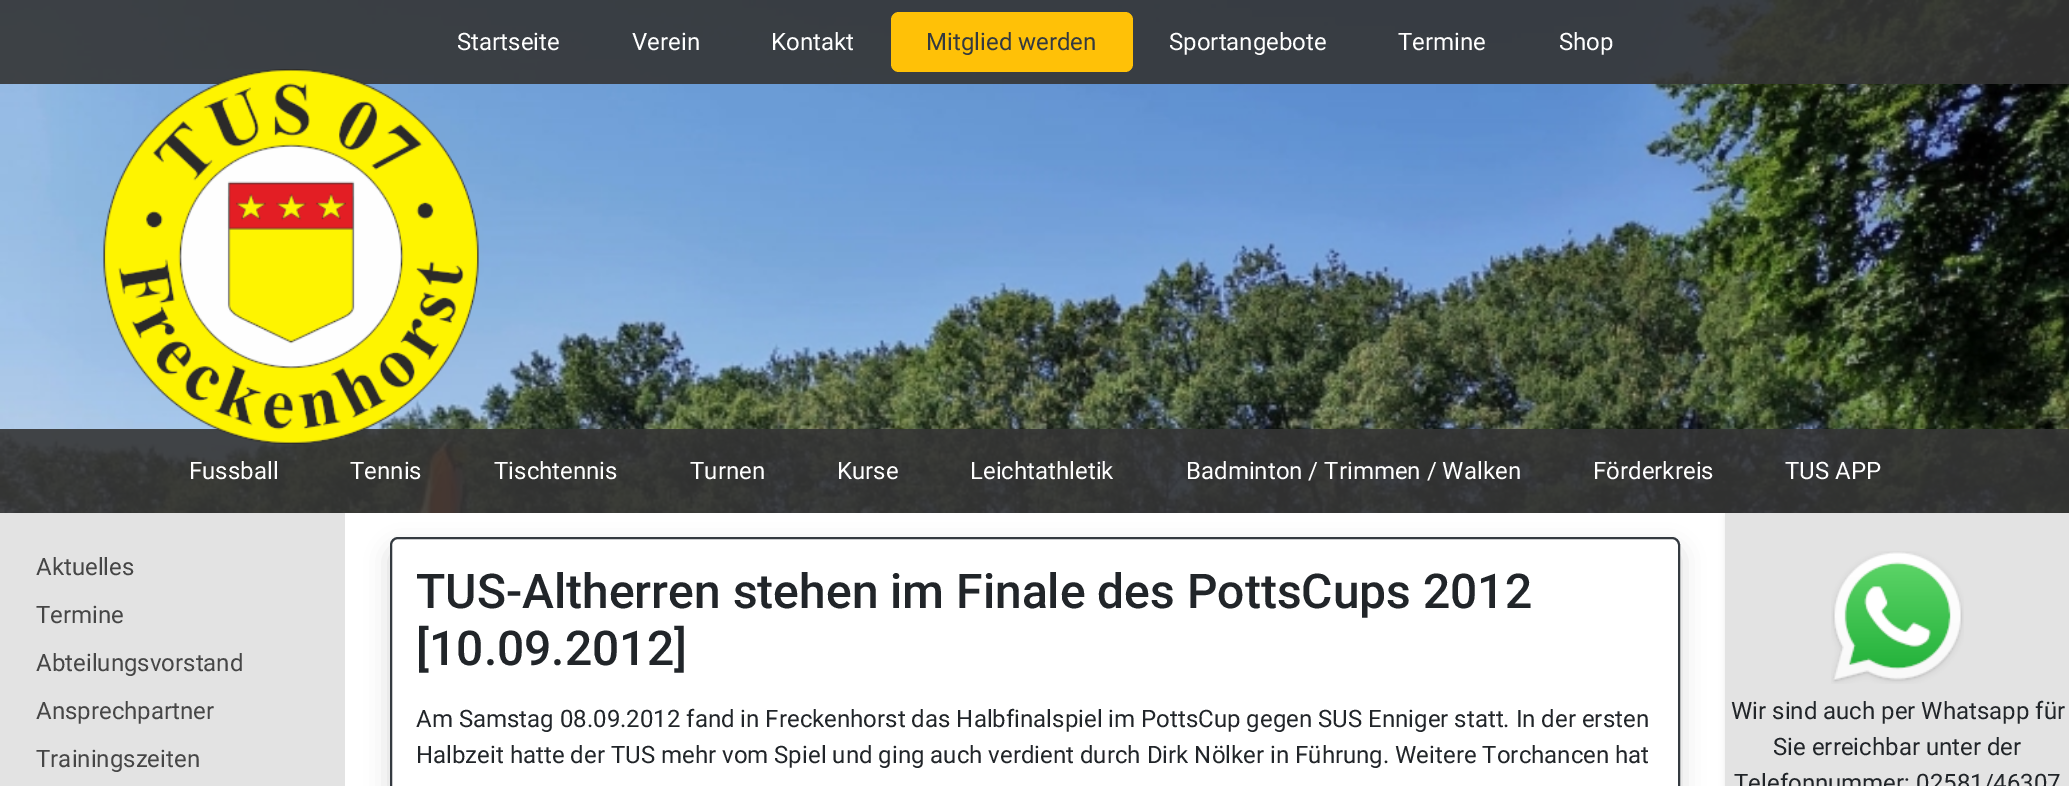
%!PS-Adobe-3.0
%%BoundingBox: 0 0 2069 786
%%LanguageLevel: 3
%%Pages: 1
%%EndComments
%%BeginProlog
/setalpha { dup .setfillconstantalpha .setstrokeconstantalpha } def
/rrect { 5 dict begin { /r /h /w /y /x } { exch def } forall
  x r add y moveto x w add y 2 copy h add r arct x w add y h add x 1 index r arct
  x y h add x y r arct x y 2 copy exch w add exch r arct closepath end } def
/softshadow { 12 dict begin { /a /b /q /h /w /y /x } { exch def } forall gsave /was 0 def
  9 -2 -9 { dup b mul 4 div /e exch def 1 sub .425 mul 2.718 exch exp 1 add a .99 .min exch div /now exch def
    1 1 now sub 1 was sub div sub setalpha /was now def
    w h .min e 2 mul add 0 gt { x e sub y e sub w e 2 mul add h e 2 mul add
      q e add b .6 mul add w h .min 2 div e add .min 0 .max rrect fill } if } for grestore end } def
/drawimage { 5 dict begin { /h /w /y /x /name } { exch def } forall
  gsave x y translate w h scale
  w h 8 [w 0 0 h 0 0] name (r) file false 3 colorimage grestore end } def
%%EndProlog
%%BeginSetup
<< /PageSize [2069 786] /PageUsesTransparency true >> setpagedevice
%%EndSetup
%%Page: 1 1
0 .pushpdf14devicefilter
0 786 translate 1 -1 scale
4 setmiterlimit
1 setgray
0 0 2069 786 rectfill
(images/1.raw) 0 0 2069 513 drawimage
0.9 setalpha
0.204 setgray
0 0 2069 84 rectfill
1 setalpha
1 0.757 0.027 setrgbcolor
891 12 242 60 8 rrect fill
0.9 setalpha
0.204 setgray
0 429 2069 84 rectfill
1 setalpha
(images/2.raw) 103 69 376 375 drawimage
0.89 setgray
0 513 345 273 rectfill
gsave
newpath 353 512 moveto 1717 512 lineto 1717 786 lineto 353 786 lineto closepath 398 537 moveto 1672 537 lineto 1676.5 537 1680 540.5 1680 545 curveto 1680 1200 lineto 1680 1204.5 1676.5 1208 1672 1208 curveto 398 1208 lineto 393.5 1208 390 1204.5 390 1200 curveto 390 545 lineto 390 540.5 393.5 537 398 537 curveto closepath eoclip newpath
0 setgray
390 549 1290 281 8 12 0.15 softshadow
grestore
0.204 0.227 0.251 setrgbcolor
2 setlinewidth
391 538 1288 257 7 rrect stroke
0 setgray
1725 516 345 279 0 3 0.07 softshadow
0.89 setgray
1725 513 344 273 rectfill
(images/3.raw) 1831 551 133 133 drawimage
/Roboto-Regular [24 0 0 -24 0 0] selectfont
1 setgray
457 50 moveto (Startseite) show
632 50 moveto (Verein) show
771 50 moveto (Kontakt) show
0.204 0.227 0.251 setrgbcolor
926 50 moveto (Mitglied werden) show
1 setgray
1169 50 moveto (Sportangebote) show
1398 50 moveto (Termine) show
1559 50 moveto (Shop) show
189 479 moveto (Fussball) show
350 479 moveto (Tennis) show
494 479 moveto (Tischtennis) show
690 479 moveto (Turnen) show
837 479 moveto (Kurse) show
970 479 moveto (Leichtathletik) show
1186 479 moveto (Badminton / Trimmen / Walken) show
1593 479 moveto (Förderkreis) show
1785 479 moveto (TUS APP) show
0.275 setgray
36 575 moveto (Aktuelles) show
36 623 moveto (Termine) show
36 671 moveto (Abteilungsvorstand) show
36 719 moveto (Ansprechpartner) show
36 767 moveto (Trainingszeiten) show
/Roboto-Medium [48 0 0 -48 0 0] selectfont
0.129 0.145 0.161 setrgbcolor
416 608 moveto (TUS-Altherren stehen im Finale des PottsCups 2012) show
416 665 moveto ([10.09.2012]) show
/Roboto-Regular [24 0 0 -24 0 0] selectfont
416 727 moveto (Am Samstag 08.09.2012 fand in Freckenhorst das Halbfinalspiel im PottsCup gegen SUS Enniger statt. In der ersten) show
416 763 moveto (Halbzeit hatte der TUS mehr vom Spiel und ging auch verdient durch Dirk Nölker in Führung. Weitere Torchancen hat) show
1731 719 moveto (Wir sind auch per Whatsapp für) show
1773 755 moveto (Sie erreichbar unter der) show
1734 791 moveto (Telefonnummer: 02581/46307) show
.poppdf14devicefilter showpage
%%EOF
